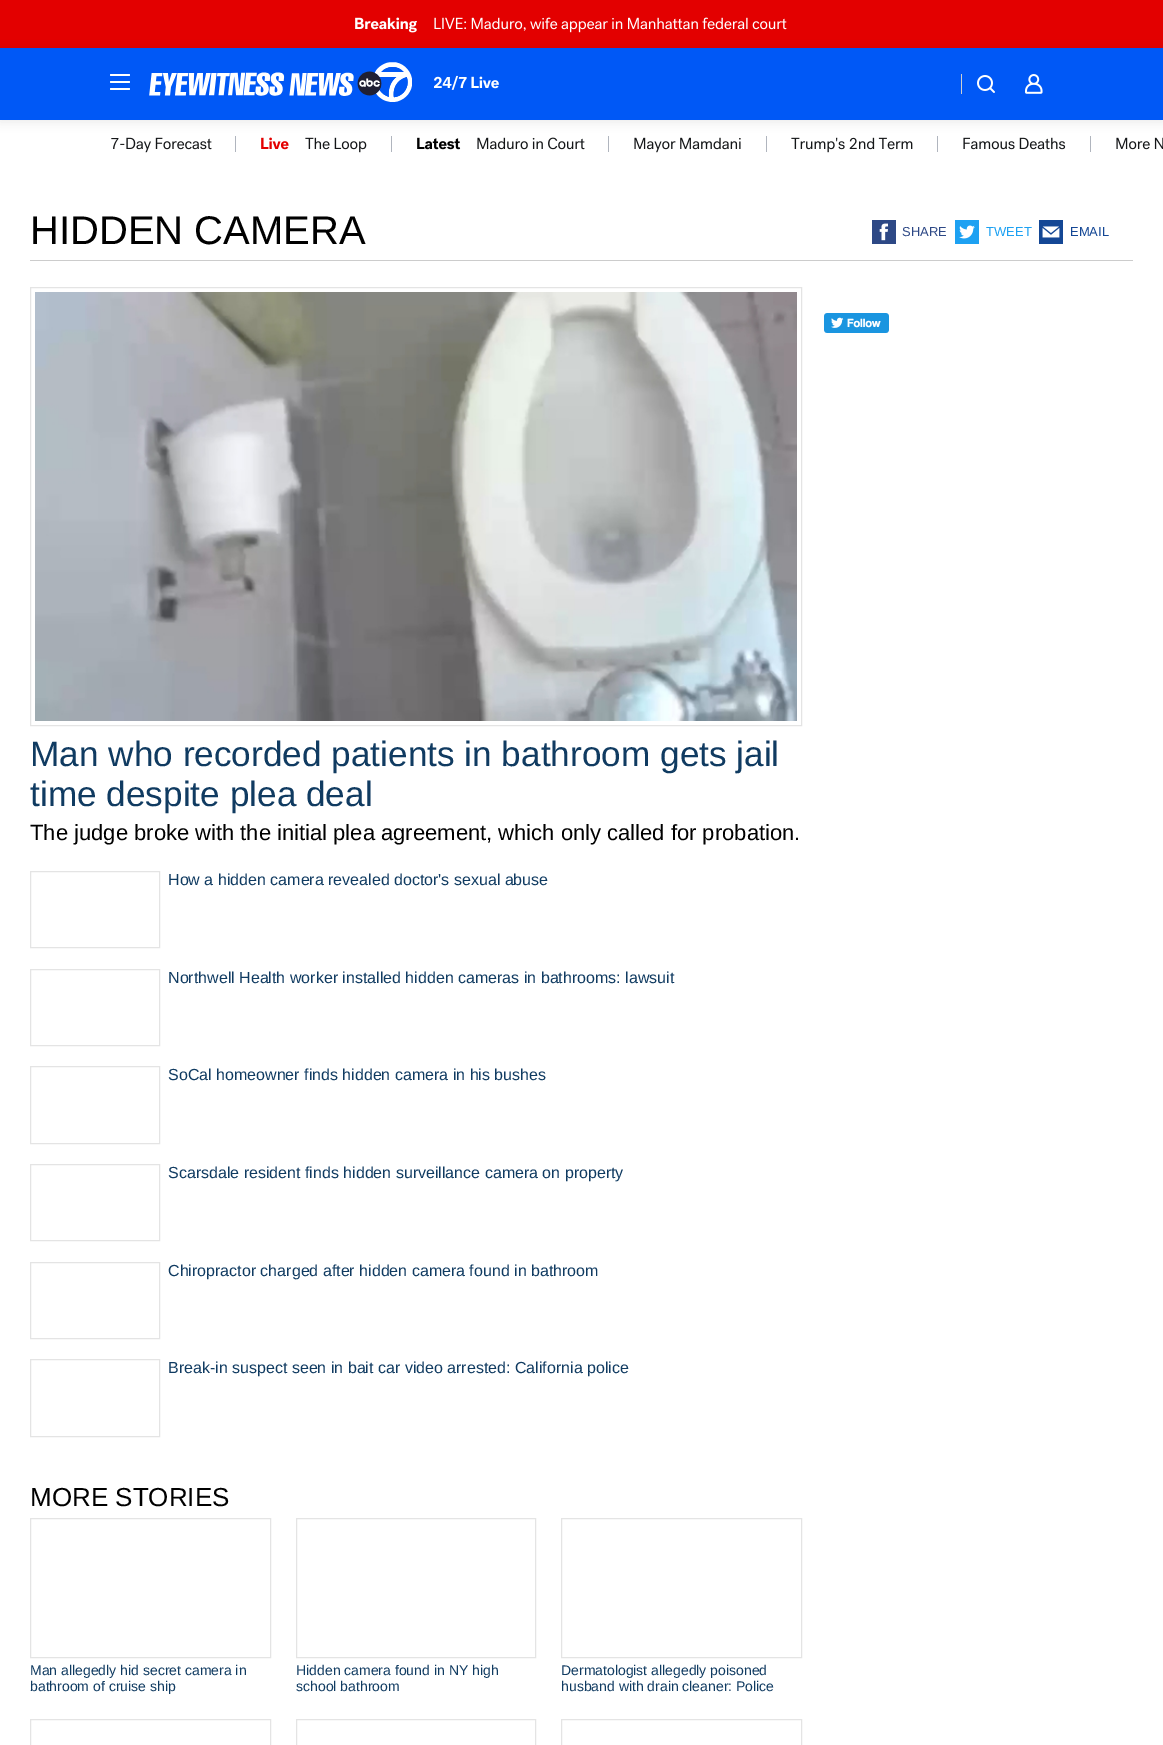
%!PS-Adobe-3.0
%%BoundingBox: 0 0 1163 1745
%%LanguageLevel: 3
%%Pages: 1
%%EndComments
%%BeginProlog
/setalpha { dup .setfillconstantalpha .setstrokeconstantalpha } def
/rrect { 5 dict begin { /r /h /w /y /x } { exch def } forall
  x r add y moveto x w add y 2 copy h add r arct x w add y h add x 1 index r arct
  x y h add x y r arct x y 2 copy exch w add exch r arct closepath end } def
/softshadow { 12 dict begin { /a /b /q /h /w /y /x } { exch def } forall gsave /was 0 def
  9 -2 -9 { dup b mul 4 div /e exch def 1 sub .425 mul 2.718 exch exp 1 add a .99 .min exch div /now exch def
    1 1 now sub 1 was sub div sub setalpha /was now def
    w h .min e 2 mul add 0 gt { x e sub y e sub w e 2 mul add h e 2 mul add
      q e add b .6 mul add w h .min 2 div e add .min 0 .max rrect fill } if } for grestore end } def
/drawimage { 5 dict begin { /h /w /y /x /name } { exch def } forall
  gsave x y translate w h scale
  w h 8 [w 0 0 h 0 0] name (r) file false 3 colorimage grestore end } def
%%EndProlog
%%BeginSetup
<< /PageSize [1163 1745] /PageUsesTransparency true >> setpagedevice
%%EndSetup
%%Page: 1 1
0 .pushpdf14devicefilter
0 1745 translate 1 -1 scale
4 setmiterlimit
1 setgray
0 0 1163 1745 rectfill
0.89 0 0 setrgbcolor
0 0 1163 48 rectfill
(images/1.raw) 355 17 62 16 drawimage
(images/2.raw) 434 17 353 16 drawimage
(images/7.raw) 111 137 101 16 drawimage
0.69 0.71 0.745 setrgbcolor
235 136 1 16 rectfill
(images/8.raw) 261 137 28 13 drawimage
(images/9.raw) 305 137 62 16 drawimage
391 136 1 16 rectfill
(images/10.raw) 417 137 44 13 drawimage
(images/11.raw) 477 137 108 13 drawimage
608 136 1 16 rectfill
(images/12.raw) 634 137 107 16 drawimage
766 136 1 16 rectfill
(images/13.raw) 791 137 122 16 drawimage
937 136 1 16 rectfill
(images/14.raw) 963 137 103 13 drawimage
1090 136 1 16 rectfill
(images/15.raw) 1116 137 47 13 drawimage
0 setgray
0 50 1163 72 0 5 0.08 softshadow
0 0.345 0.965 setrgbcolor
0 48 1163 72 rectfill
1 setgray
110 81 20 2 1 rrect fill
110 74 20 2 1 rrect fill
110 88 20 2 1 rrect fill
(images/3.raw) 149 62 263 40 drawimage
(images/4.raw) 433 75 66 15 drawimage
0.808 0.812 0.812 setrgbcolor
961 74 1 20 rectfill
(images/5.raw) 977 75 18 18 drawimage
(images/6.raw) 1025 74 18 20 drawimage
0.8 setgray
30 260 1103 1 rectfill
0.176 0.282 0.522 setrgbcolor
872 220 24 24 rectfill
(images/16.raw) 879 223 9 18 drawimage
0.114 0.631 0.949 setrgbcolor
955 220 24 24 rectfill
(images/17.raw) 959 225 16 14 drawimage
0.078 0.278 0.584 setrgbcolor
1039 220 24 24 rectfill
(images/18.raw) 1042 226 18 12 drawimage
(images/19.raw) 824 313 65 20 drawimage
0.894 setgray
30.5 287.5 771 438 rectstroke
(images/20.raw) 35 292 762 429 drawimage
30.5 871.5 129 76 rectstroke
30.5 969.5 129 76 rectstroke
30.5 1066.5 129 77 rectstroke
30.5 1164.5 129 76 rectstroke
30.5 1262.5 129 76 rectstroke
30.5 1359.5 129 77 rectstroke
30.5 1518.5 240 139 rectstroke
296.5 1518.5 239 139 rectstroke
561.5 1518.5 240 139 rectstroke
30.5 1719.5 240 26 rectstroke
296.5 1719.5 239 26 rectstroke
561.5 1719.5 240 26 rectstroke
/LiberationSans-Regular [40 0 0 -40 0 0] selectfont
0 setgray
30 244 moveto (HIDDEN CAMERA) show
/LiberationSans-Regular [13 0 0 -13 0 0] selectfont
0.176 0.282 0.522 setrgbcolor
902 236 moveto (SHARE) show
0.114 0.631 0.949 setrgbcolor
986 236 moveto (TWEET) show
0.078 0.278 0.584 setrgbcolor
1070 236 moveto (EMAIL) show
/LiberationSans-Regular [35.2 0 0 -35.2 0 0] selectfont
0.063 0.231 0.38 setrgbcolor
30 766 moveto (Man who recorded patients in bathroom gets jail) show
30 806 moveto (time despite plea deal) show
/LiberationSans-Regular [22 0 0 -22 0 0] selectfont
0 setgray
30 840 moveto (The judge broke with the initial plea agreement, which only called for probation.) show
/LiberationSans-Regular [16 0 0 -16 0 0] selectfont
0.063 0.231 0.38 setrgbcolor
168 885 moveto (How a hidden camera revealed doctor's sexual abuse) show
168 983 moveto (Northwell Health worker installed hidden cameras in bathrooms: lawsuit) show
168 1080 moveto (SoCal homeowner finds hidden camera in his bushes) show
168 1178 moveto (Scarsdale resident finds hidden surveillance camera on property) show
168 1276 moveto (Chiropractor charged after hidden camera found in bathroom) show
168 1373 moveto (Break-in suspect seen in bait car video arrested: California police) show
/LiberationSans-Regular [26 0 0 -26 0 0] selectfont
0 setgray
30 1506 moveto (MORE STORIES) show
/LiberationSans-Regular [14 0 0 -14 0 0] selectfont
0.063 0.231 0.38 setrgbcolor
30 1675 moveto (Man allegedly hid secret camera in) show
30 1691 moveto (bathroom of cruise ship) show
296 1675 moveto (Hidden camera found in NY high) show
296 1691 moveto (school bathroom) show
561 1675 moveto (Dermatologist allegedly poisoned) show
561 1691 moveto (husband with drain cleaner: Police) show
.poppdf14devicefilter showpage
%%EOF
